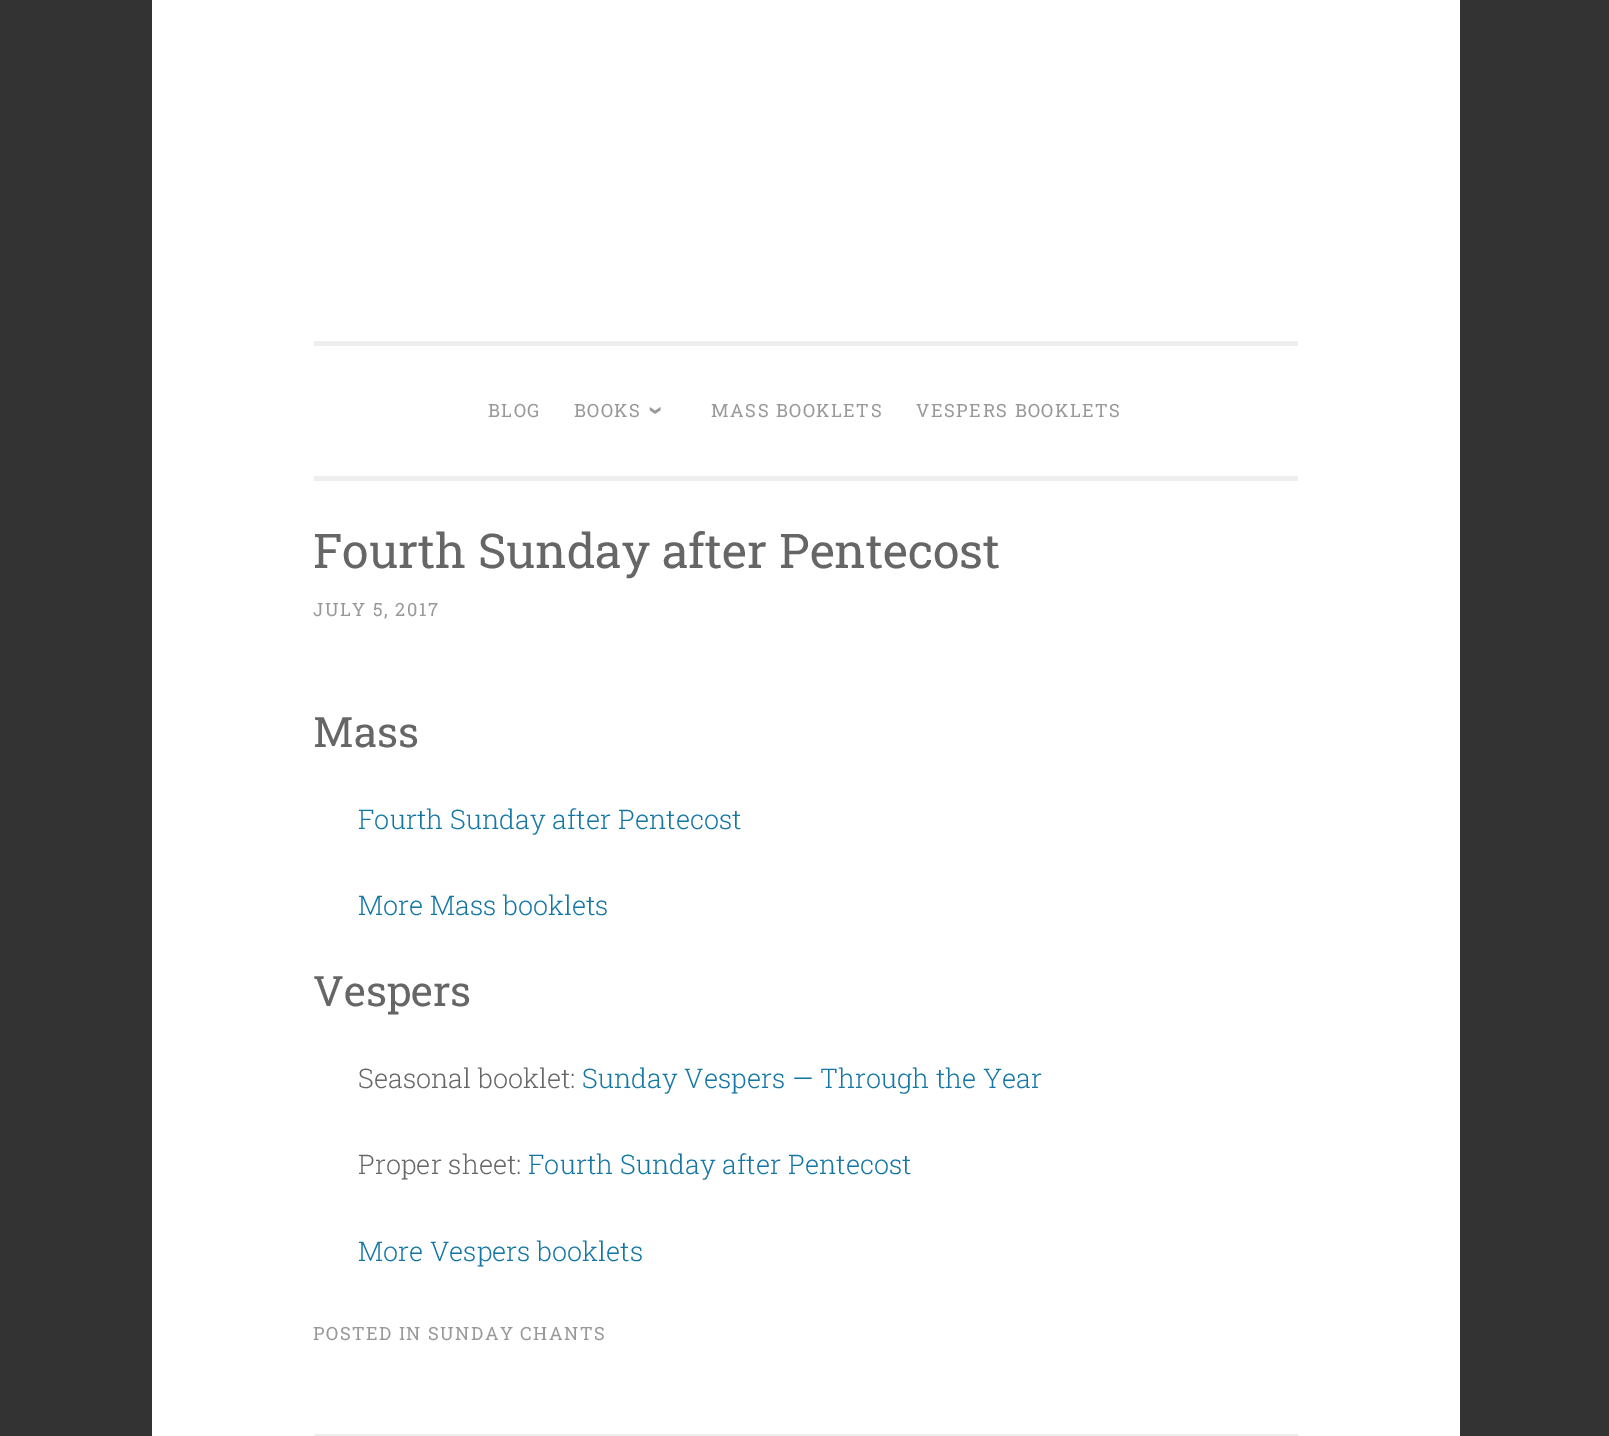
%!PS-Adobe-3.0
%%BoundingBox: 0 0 1609 1436
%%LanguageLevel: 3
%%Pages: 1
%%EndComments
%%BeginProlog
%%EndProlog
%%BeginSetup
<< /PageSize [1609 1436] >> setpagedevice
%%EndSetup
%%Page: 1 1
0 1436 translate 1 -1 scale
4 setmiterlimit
0.2 setgray
0 0 1609 1436 rectfill
1 setgray
152 0 1308 1436 rectfill
0.933 setgray
314 476 984 5 rectfill
314 341 984 5 rectfill
314 1434 984 2 rectfill
/RobotoSlab-Regular [18.25 0 0 -18.25 0 0] selectfont
0.6 setgray
488 417 moveto 1.5 0 (BLOG) ashow
574 417 moveto 1.5 0 (BOOKS) ashow
/LiberationSans-Bold [27 0 0 -27 0 0] selectfont
gsave 648 406 translate 90 rotate 0 0 moveto 1.5 0 (›) ashow grestore
/RobotoSlab-Regular [18.25 0 0 -18.25 0 0] selectfont
711 417 moveto 1.5 0 (MASS BOOKLETS) ashow
916 417 moveto 1.5 0 (VESPERS BOOKLETS) ashow
/RobotoSlab-Regular [48 0 0 -48 0 0] selectfont
0.4 setgray
313 568 moveto (Fourth Sunday after Pentecost) show
/RobotoSlab-Regular [18.25 0 0 -18.25 0 0] selectfont
0.6 setgray
313 616 moveto 1.5 0 (JULY 5, 2017) ashow
/RobotoSlab-Regular [42 0 0 -42 0 0] selectfont
0.4 setgray
313 747 moveto (Mass) show
/RobotoSlab-Light [27 0 0 -27 0 0] selectfont
0.075 0.463 0.643 setrgbcolor
358 829 moveto (Fourth Sunday after Pentecost) show
358 915 moveto (More Mass booklets) show
/RobotoSlab-Regular [42 0 0 -42 0 0] selectfont
0.4 setgray
313 1006 moveto (Vespers) show
/RobotoSlab-Light [27 0 0 -27 0 0] selectfont
358 1088 moveto (Seasonal booklet:) show
0.075 0.463 0.643 setrgbcolor
582 1088 moveto (Sunday Vespers — Through the Year) show
0.4 setgray
358 1174 moveto (Proper sheet:) show
0.075 0.463 0.643 setrgbcolor
528 1174 moveto (Fourth Sunday after Pentecost) show
358 1261 moveto (More Vespers booklets) show
/RobotoSlab-Regular [18.25 0 0 -18.25 0 0] selectfont
0.6 setgray
313 1340 moveto 1.5 0 (POSTED IN SUNDAY CHANTS) ashow
showpage
%%EOF
